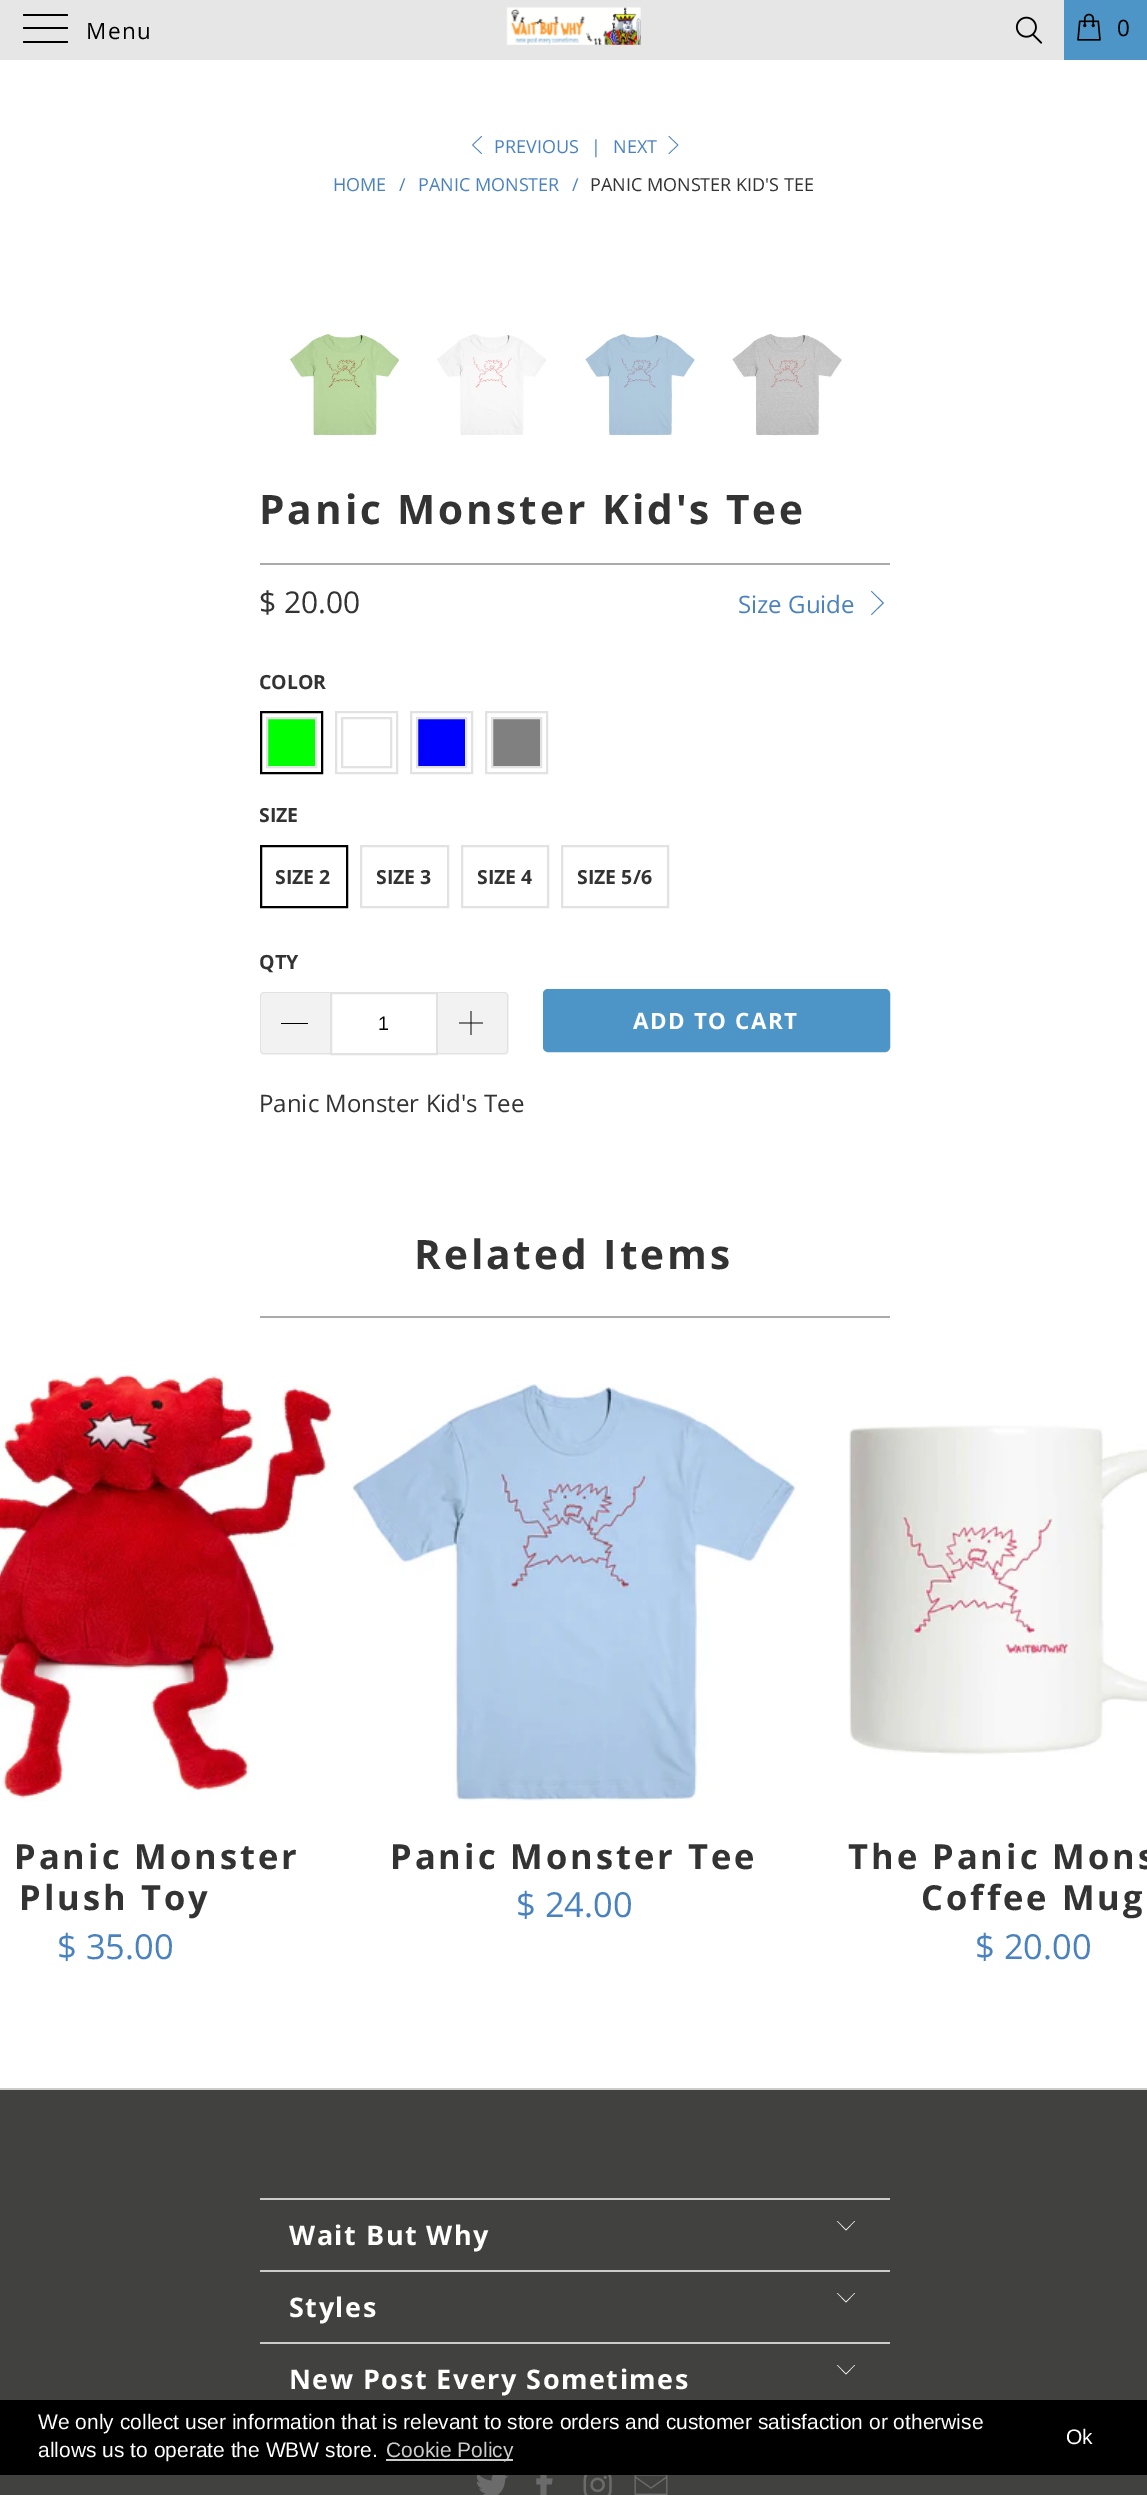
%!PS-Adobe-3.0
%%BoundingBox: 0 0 1147 2495
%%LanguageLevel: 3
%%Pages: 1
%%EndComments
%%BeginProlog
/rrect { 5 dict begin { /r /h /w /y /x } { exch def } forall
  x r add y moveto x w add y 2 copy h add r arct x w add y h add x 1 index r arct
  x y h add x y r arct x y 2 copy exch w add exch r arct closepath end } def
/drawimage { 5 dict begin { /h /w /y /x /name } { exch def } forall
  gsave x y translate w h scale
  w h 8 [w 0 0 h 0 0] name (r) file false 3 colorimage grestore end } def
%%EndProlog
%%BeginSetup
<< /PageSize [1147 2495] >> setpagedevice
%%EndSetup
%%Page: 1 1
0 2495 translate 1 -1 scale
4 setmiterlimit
1 setgray
0 0 1147 2495 rectfill
0.902 setgray
0 0 1064 60 rectfill
0 setgray
23 14 45 2 1 rrect fill
23 27 45 2 1 rrect fill
23 41 45 2 1 rrect fill
(images/1.raw) 506 7 135 38 drawimage
(images/2.raw) 1015 16 28 28 drawimage
0.302 0.584 0.776 setrgbcolor
1064 0 83 60 rectfill
(images/3.raw) 1077 13 24 28 drawimage
0.29 0.51 0.749 setrgbcolor
newpath 481.5 154 moveto 472 145 lineto 481.5 136 lineto 482 136.5 lineto 473 145 lineto 482 153.5 lineto closepath fill
newpath 669 154 moveto 668.5 153.5 lineto 677.5 145 lineto 668.5 136.5 lineto 669 136 lineto 678.5 145 lineto closepath fill
(images/4.raw) 290 334 109 102 drawimage
(images/5.raw) 437 334 109 101 drawimage
(images/6.raw) 585 334 110 102 drawimage
(images/7.raw) 732 334 110 102 drawimage
0.667 setgray
260 563 630 2 rectfill
0.29 0.51 0.749 setrgbcolor
newpath 871.5 615 moveto 871 614.5 lineto 882.5 603 lineto 871 591.5 lineto 871.5 591 lineto 884 603 lineto closepath fill
0 setgray
2 setlinewidth
261 712 61 61 rectstroke
0 1 0 setrgbcolor
newpath 267 718 moveto 316 718 lineto 316 767 lineto 267 767 lineto closepath gsave fill grestore
0.886 setgray
stroke
336 712 61 61 rectstroke
342 718 49 49 rectstroke
411 712 61 61 rectstroke
0 0 1 setrgbcolor
newpath 417 718 moveto 466 718 lineto 466 767 lineto 417 767 lineto closepath gsave fill grestore
0.886 setgray
stroke
486 712 61 61 rectstroke
0.502 setgray
newpath 492 718 moveto 541 718 lineto 541 767 lineto 492 767 lineto closepath gsave fill grestore
0.886 setgray
stroke
0 setgray
261 846 86 61 rectstroke
0.886 setgray
361 846 87 61 rectstroke
462 846 86 61 rectstroke
562 846 106 61 rectstroke
0.949 setgray
newpath 265 992 moveto 330 992 lineto 330 1055 lineto 265 1055 lineto 262 1055 260 1053 260 1050 curveto 260 997 lineto 260 994 262 992 265 992 curveto closepath fill
0.886 setgray
newpath 264 992 moveto 330 992 lineto 330 1054 lineto 264 1054 lineto 262 1054 260 1052 260 1050 curveto 260 996 lineto 260 994 262 992 264 992 curveto closepath 264 993 moveto 330 993 lineto 330 1053 lineto 264 1053 lineto 262 1053 261 1052 261 1050 curveto 261 996 lineto 261 994 262 993 264 993 curveto closepath eofill
0 setgray
281 1023 27 1 rectfill
0.886 setgray
331 993 106 61 rectstroke
0.949 setgray
newpath 438 992 moveto 504 992 lineto 507 992 509 994 509 997 curveto 509 1050 lineto 509 1053 507 1055 504 1055 curveto 438 1055 lineto closepath fill
0.886 setgray
newpath 438 992 moveto 504 992 lineto 506 992 508 994 508 996 curveto 508 1050 lineto 508 1052 506 1054 504 1054 curveto 438 1054 lineto closepath 438 993 moveto 504 993 lineto 506 993 507 994 507 996 curveto 507 1050 lineto 507 1052 506 1053 504 1053 curveto 438 1053 lineto closepath eofill
(images/8.raw) 459 1011 24 24 drawimage
0.302 0.584 0.776 setrgbcolor
544 990 345 61 4 rrect gsave fill grestore
stroke
0.667 setgray
260 1316 630 2 rectfill
(images/9.raw) 0 1374 333 427 drawimage
(images/10.raw) 352 1384 444 417 drawimage
(images/11.raw) 849 1425 298 330 drawimage
0.255 0.255 0.251 setrgbcolor
0 2090 1147 405 rectfill
0.8 setgray
0 2088 1147 2 rectfill
260 2198 630 2 rectfill
1 setgray
newpath 846 2230.5 moveto 837 2221 lineto 837.5 2221 lineto 846 2229.5 lineto 854.5 2221 lineto 855 2221 lineto closepath fill
0.8 setgray
260 2270 630 2 rectfill
1 setgray
newpath 846 2302.5 moveto 837 2293 lineto 837.5 2293 lineto 846 2301.5 lineto 854.5 2293 lineto 855 2293 lineto closepath fill
0.8 setgray
260 2342 630 2 rectfill
1 setgray
newpath 846 2374.5 moveto 837 2365 lineto 837.5 2365 lineto 846 2373.5 lineto 854.5 2365 lineto 855 2365 lineto closepath fill
(images/12.raw) 476 2475 33 20 drawimage
(images/13.raw) 536 2475 17 20 drawimage
(images/14.raw) 583 2475 29 20 drawimage
(images/15.raw) 634 2475 34 20 drawimage
0 setgray
0 2400 1147 75 rectfill
0.8 setgray
386 2459 127 2 rectfill
/OpenSans-Regular [22.5 0 0 -22.5 0 0] selectfont
0 setgray
86 39 moveto 1.5 0 (Menu) ashow
1117 36 moveto 3 0 (0) ashow
/OpenSans-Regular [18 0 0 -18 0 0] selectfont
0.29 0.51 0.749 setrgbcolor
494 153 moveto (PREVIOUS) show
591 153 moveto (|) show
613 153 moveto (NEXT) show
333 191 moveto (HOME) show
399 191 moveto (/) show
418 191 moveto (PANIC MONSTER) show
572 191 moveto (/) show
0.2 setgray
590 191 moveto (PANIC MONSTER KID'S TEE) show
/OpenSans-Bold [40.5 0 0 -40.5 0 0] selectfont
259 524 moveto 3 0 (Panic Monster Kid's Tee) ashow
/OpenSans-Regular [30 0 0 -30 0 0] selectfont
259 613 moveto ($ 20.00) show
/OpenSans-Regular [24 0 0 -24 0 0] selectfont
0.29 0.51 0.749 setrgbcolor
738 613 moveto (Size Guide) show
/OpenSans-Bold [19.5 0 0 -19.5 0 0] selectfont
0.2 setgray
259 689 moveto (COLOR) show
259 822 moveto (SIZE) show
275 884 moveto (SIZE 2) show
376 884 moveto (SIZE 3) show
477 884 moveto (SIZE 4) show
577 884 moveto (SIZE 5/6) show
259 969 moveto (QTY) show
/LiberationSans-Regular [19.5 0 0 -19.5 0 0] selectfont
0 setgray
378 1030 moveto (1) show
/OpenSans-Bold [22.5 0 0 -22.5 0 0] selectfont
1 setgray
633 1029 moveto 1.5 0 (ADD TO CART) ashow
/OpenSans-Regular [24 0 0 -24 0 0] selectfont
0.2 setgray
259 1112 moveto (Panic Monster Kid's Tee) show
/OpenSans-Bold [40.5 0 0 -40.5 0 0] selectfont
414 1269 moveto 3 0 (Related Items) ashow
/OpenSans-Bold [34.5 0 0 -34.5 0 0] selectfont
14 1869 moveto 3 0 (Panic Monster) ashow
19 1910 moveto 3 0 (Plush Toy) ashow
/OpenSans-Regular [34.5 0 0 -34.5 0 0] selectfont
0.29 0.51 0.749 setrgbcolor
57 1959 moveto ($ 35.00) show
/OpenSans-Bold [34.5 0 0 -34.5 0 0] selectfont
0.2 setgray
390 1869 moveto 3 0 (Panic Monster Tee) ashow
/OpenSans-Regular [34.5 0 0 -34.5 0 0] selectfont
0.29 0.51 0.749 setrgbcolor
516 1917 moveto ($ 24.00) show
/OpenSans-Bold [34.5 0 0 -34.5 0 0] selectfont
0.2 setgray
848 1869 moveto 3 0 (The Panic Mons) ashow
921 1910 moveto 3 0 (Coffee Mug) ashow
/OpenSans-Regular [34.5 0 0 -34.5 0 0] selectfont
0.29 0.51 0.749 setrgbcolor
975 1959 moveto ($ 20.00) show
/OpenSans-Bold [27 0 0 -27 0 0] selectfont
1 setgray
289 2245 moveto 1.5 0 (Wait But Why) ashow
289 2317 moveto 1.5 0 (Styles) ashow
289 2389 moveto 1.5 0 (New Post Every Sometimes) ashow
/LiberationSans-Regular [21 0 0 -21 0 0] selectfont
38 2429 moveto (We only collect user information that is relevant to store orders and customer satisfaction or otherwise) show
38 2457 moveto (allows us to operate the WBW store.) show
0.8 setgray
386 2457 moveto (Cookie Policy) show
1 setgray
1066 2444 moveto (Ok) show
showpage
%%EOF
